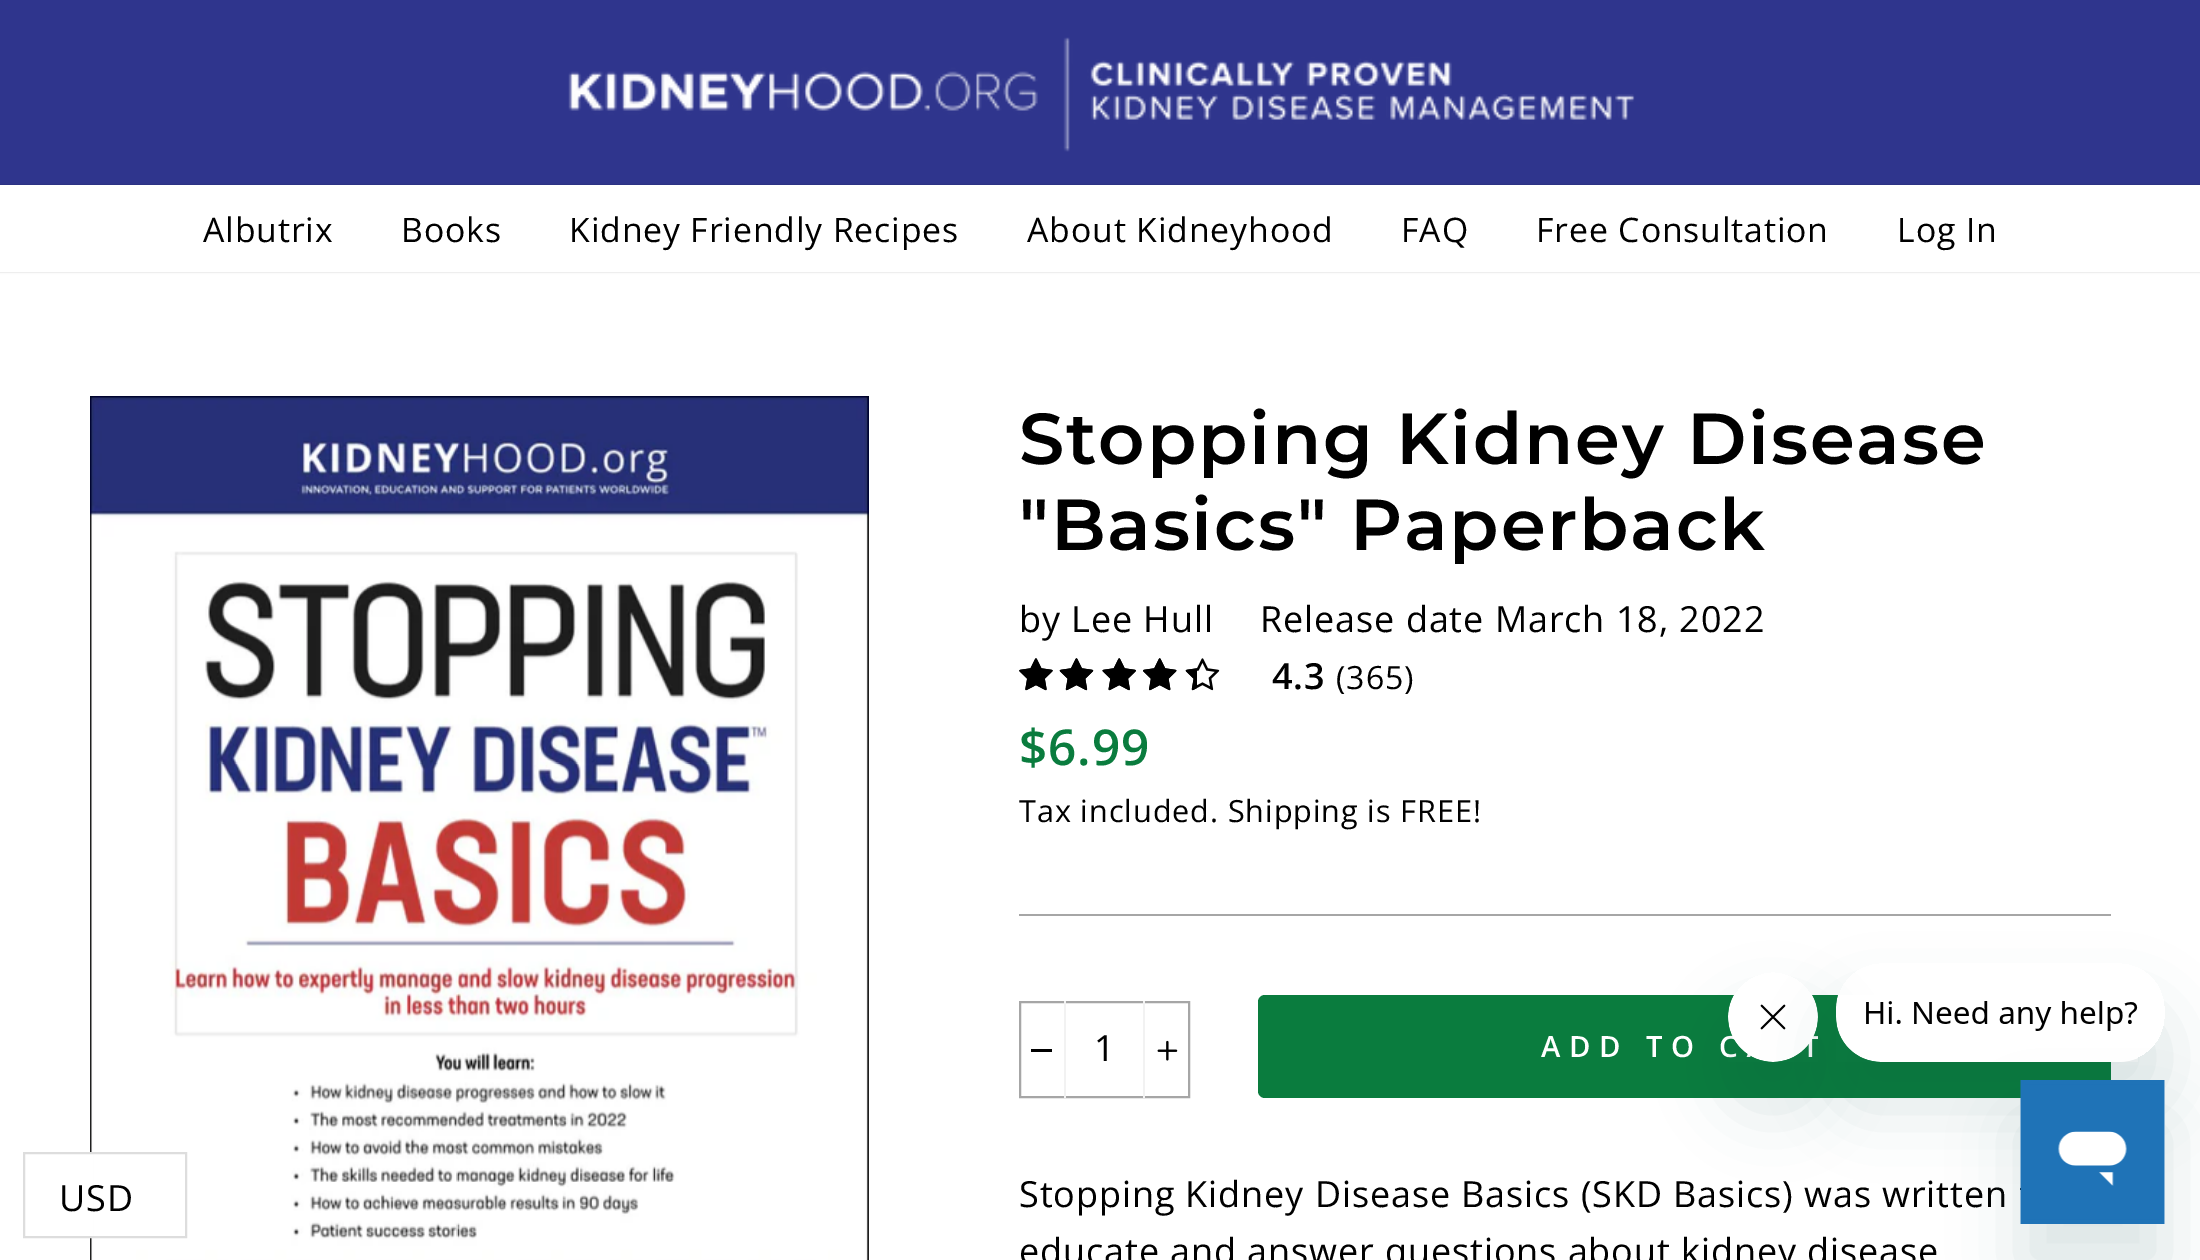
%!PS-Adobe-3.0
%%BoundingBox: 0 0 2200 1260
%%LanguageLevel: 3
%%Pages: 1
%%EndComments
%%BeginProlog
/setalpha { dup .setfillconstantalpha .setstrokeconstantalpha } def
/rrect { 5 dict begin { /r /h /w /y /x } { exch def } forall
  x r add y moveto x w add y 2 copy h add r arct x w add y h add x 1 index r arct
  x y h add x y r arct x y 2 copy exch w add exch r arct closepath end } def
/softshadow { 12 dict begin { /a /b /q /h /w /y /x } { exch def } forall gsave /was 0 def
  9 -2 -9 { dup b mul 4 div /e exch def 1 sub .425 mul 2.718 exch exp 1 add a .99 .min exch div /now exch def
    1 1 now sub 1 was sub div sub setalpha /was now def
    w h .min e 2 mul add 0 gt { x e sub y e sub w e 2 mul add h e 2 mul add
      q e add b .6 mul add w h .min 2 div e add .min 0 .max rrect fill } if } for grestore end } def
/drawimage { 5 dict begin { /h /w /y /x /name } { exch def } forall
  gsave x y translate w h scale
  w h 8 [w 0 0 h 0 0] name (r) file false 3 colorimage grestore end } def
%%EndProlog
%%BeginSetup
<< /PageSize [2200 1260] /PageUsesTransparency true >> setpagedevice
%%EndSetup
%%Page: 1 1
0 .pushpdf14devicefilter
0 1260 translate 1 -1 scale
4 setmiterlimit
1 setgray
0 0 2200 1260 rectfill
0.184 0.208 0.553 setrgbcolor
0 0 2200 185 rectfill
(images/1.raw) 568 37 1067 115 drawimage
gsave
newpath 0 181 moveto 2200 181 lineto 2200 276 lineto 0 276 lineto closepath 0 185 moveto 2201 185 lineto 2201 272 lineto 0 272 lineto closepath eoclip newpath
0 setgray
0 185 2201 87 0 1 0.2 softshadow
grestore
(images/2.raw) 90 396 779 864 drawimage
(images/3.raw) 1019 658 34 33 drawimage
(images/4.raw) 1059 658 35 33 drawimage
(images/5.raw) 1102 658 34 33 drawimage
(images/6.raw) 1143 658 34 33 drawimage
(images/4.raw) 1185 658 35 33 drawimage
(images/7.raw) 1019 658 34 33 drawimage
(images/8.raw) 1059 658 35 33 drawimage
(images/9.raw) 1102 658 34 33 drawimage
(images/10.raw) 1143 658 34 33 drawimage
(images/11.raw) 1185 668 12 23 drawimage
0.651 setgray
1019 914 1092 2 rectfill
2 setlinewidth
1020 1002 169 95 rectstroke
0.949 setgray
1064 1001 2 97 rectfill
0 setgray
1031 1049 21 3 rectfill
0.949 setgray
1143 1001 2 97 rectfill
(images/12.raw) 1157 1040 21 21 drawimage
0.039 0.486 0.243 setrgbcolor
1258 995 853 103 7 rrect fill
1 setgray
90 1154 3 82 rectfill
0.867 setgray
24 1153 162 84 rectstroke
gsave
newpath 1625 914 moveto 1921 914 lineto 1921 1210 lineto 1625 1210 lineto closepath 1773 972 moveto 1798 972 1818 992 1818 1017 curveto 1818 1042 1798 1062 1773 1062 curveto 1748 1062 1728 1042 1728 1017 curveto 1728 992 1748 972 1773 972 curveto closepath eoclip newpath
0.09 0.286 0.302 setrgbcolor
1728 1017 90 90 45 34 0.15 softshadow
grestore
/OpenSans-Regular [33.75 0 0 -33.75 0 0] selectfont
0 setgray
203 242 moveto 0.9 0 (Albutrix) ashow
401 242 moveto 0.9 0 (Books) ashow
569 242 moveto 0.9 0 (Kidney Friendly Recipes) ashow
1027 242 moveto 0.9 0 (About Kidneyhood) ashow
1401 242 moveto 0.9 0 (FAQ) ashow
1536 242 moveto 0.9 0 (Free Consultation) ashow
1897 242 moveto 0.9 0 (Log In) ashow
/Montserrat-SemiBold [72 0 0 -72 0 0] selectfont
1019 464 moveto 1.8 0 (Stopping Kidney Disease) ashow
1019 550 moveto 1.8 0 ("Basics" Paperback) ashow
/OpenSans-Regular [36 0 0 -36 0 0] selectfont
1019 632 moveto 0.9 0 (by Lee Hull) ashow
1260 632 moveto 0.9 0 (Release date March 18, 2022) ashow
/OpenSans-SemiBold [36 0 0 -36 0 0] selectfont
1272 689 moveto 0.9 0 (4.3) ashow
/OpenSans-Regular [32 0 0 -32 0 0] selectfont
1336 689 moveto 0.9 0 (\(365\)) ashow
/OpenSans-SemiBold [49.5 0 0 -49.5 0 0] selectfont
0.039 0.486 0.243 setrgbcolor
1019 765 moveto 0.9 0 ($6.99) ashow
/OpenSans-Regular [30.6 0 0 -30.6 0 0] selectfont
0 setgray
1019 822 moveto 0.9 0 (Tax included. Shipping is FREE!) ashow
/OpenSans-Regular [36 0 0 -36 0 0] selectfont
1094 1061 moveto 0.9 0 (1) ashow
/OpenSans-SemiBold [29.25 0 0 -29.25 0 0] selectfont
1 setgray
1541 1057 moveto 8.75 0 (ADD TO C) ashow
/OpenSans-Regular [36 0 0 -36 0 0] selectfont
0 setgray
1019 1207 moveto 0.9 0 (Stopping Kidney Disease Basics \(SKD Basics\) was written) ashow
1019 1264 moveto 0.9 0 (educate and answer questions about kidney disease) ashow
59 1211 moveto 0.9 0 (USD) ashow
(images/14.raw) 1728 995 90 67 drawimage
gsave
newpath 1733 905 moveto 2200 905 lineto 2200 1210 lineto 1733 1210 lineto closepath 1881 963 moveto 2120 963 lineto 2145 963 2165 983 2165 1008 curveto 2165 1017 lineto 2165 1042 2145 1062 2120 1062 curveto 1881 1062 lineto 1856 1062 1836 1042 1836 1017 curveto 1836 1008 lineto 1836 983 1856 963 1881 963 curveto closepath eoclip newpath
0.09 0.286 0.302 setrgbcolor
1836 1008 329 99 45 34 0.15 softshadow
grestore
(images/13.raw) 1836 995 302 67 drawimage
0.09 0.286 0.302 setrgbcolor
2021 1125 144 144 0 34 0.15 softshadow
(images/15.raw) 2020 1080 145 144 drawimage
.poppdf14devicefilter showpage
%%EOF
